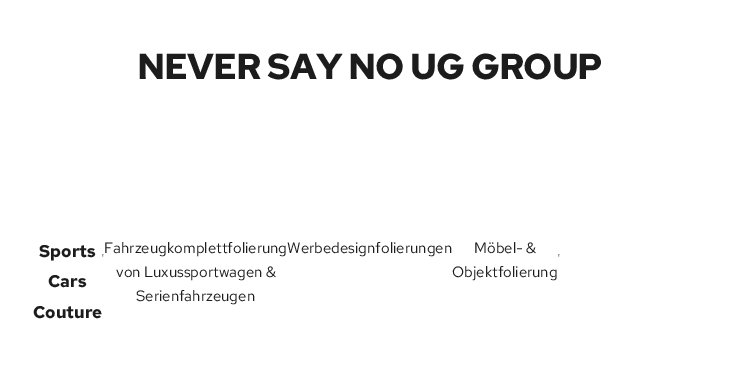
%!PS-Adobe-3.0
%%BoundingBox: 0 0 740 367
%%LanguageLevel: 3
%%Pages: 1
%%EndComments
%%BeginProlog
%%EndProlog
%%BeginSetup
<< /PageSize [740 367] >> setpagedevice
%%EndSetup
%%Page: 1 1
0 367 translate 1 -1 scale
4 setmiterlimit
1 setgray
0 0 740 367 rectfill
0.549 setgray
newpath 102 254 moveto 104 254 lineto 103 256 lineto closepath fill
0.933 setgray
newpath 104 254 moveto 104 257 lineto 103 256 lineto closepath fill
102 256 2 1 rectfill
0.624 setgray
newpath 102 257 moveto 102 254 lineto 103 256 lineto closepath fill
0.549 setgray
newpath 558 254 moveto 560 254 lineto 559 256 lineto closepath fill
0.933 setgray
newpath 560 254 moveto 560 257 lineto 559 256 lineto closepath fill
558 256 2 1 rectfill
0.624 setgray
newpath 558 257 moveto 558 254 lineto 559 256 lineto closepath fill
/RedHatText-Bold [36 0 0 -36 0 0] selectfont
0.11 setgray
137 79 moveto -1 0 (NEVER SAY NO UG GROUP) ashow
/RedHatText-Bold [17 0 0 -17 0 0] selectfont
39 257 moveto (Sports) show
48 287 moveto (Cars) show
33 318 moveto (Couture) show
/RedHatText-Regular [15 0 0 -15 0 0] selectfont
104 253 moveto (FahrzeugkomplettfolierungWerbedesignfolierungen) show
116 277 moveto (von Luxussportwagen &) show
136 301 moveto (Serienfahrzeugen) show
474 253 moveto (Möbel- &) show
452 277 moveto (Objektfolierung) show
showpage
%%EOF
